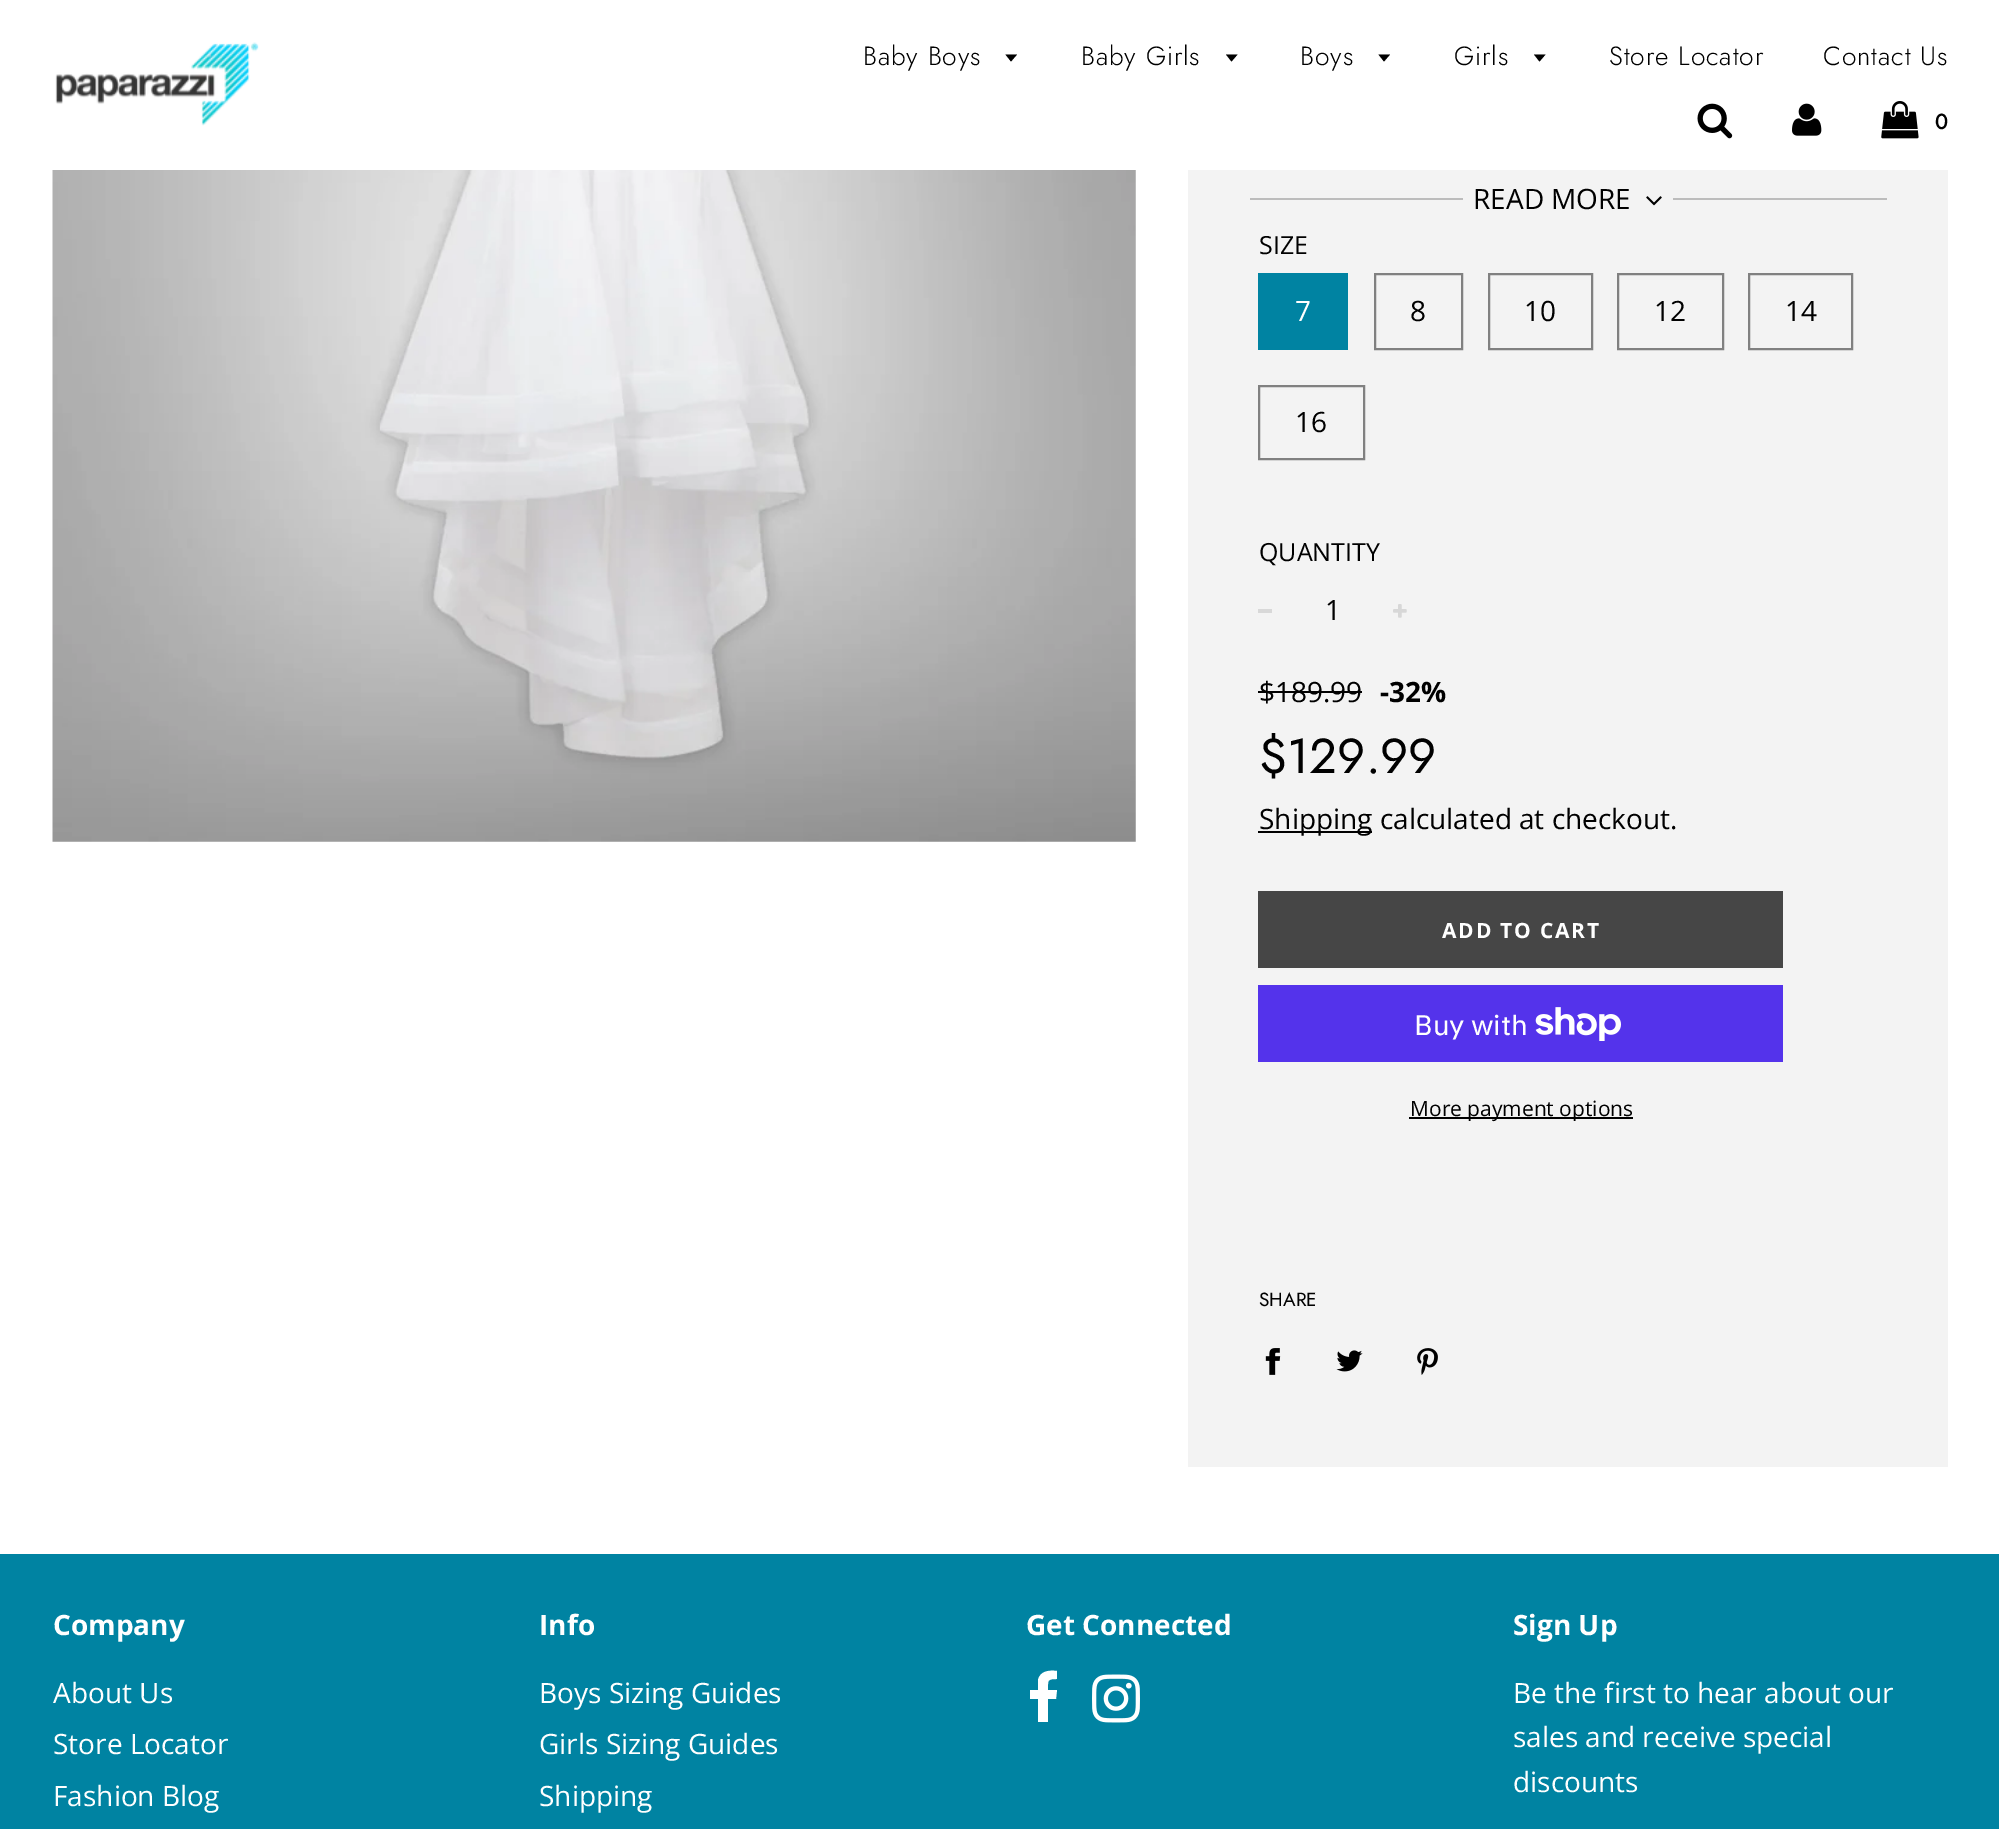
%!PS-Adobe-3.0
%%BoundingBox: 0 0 1999 1829
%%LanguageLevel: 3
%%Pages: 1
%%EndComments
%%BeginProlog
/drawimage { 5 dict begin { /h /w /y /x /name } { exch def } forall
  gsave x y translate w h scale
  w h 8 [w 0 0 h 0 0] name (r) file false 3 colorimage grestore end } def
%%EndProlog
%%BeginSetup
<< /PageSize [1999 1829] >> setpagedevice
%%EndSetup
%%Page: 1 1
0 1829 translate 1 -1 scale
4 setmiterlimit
1 setgray
0 0 1999 1829 rectfill
(images/1.raw) 55 42 204 84 drawimage
0 setgray
newpath 1005.5 54.5 moveto 1011 61.5 lineto 1017 54.5 lineto closepath fill
newpath 1226 54.5 moveto 1231.5 61.5 lineto 1237.5 54.5 lineto closepath fill
newpath 1378.5 54.5 moveto 1384 61.5 lineto 1390 54.5 lineto closepath fill
newpath 1534 54.5 moveto 1539.5 61.5 lineto 1545.5 54.5 lineto closepath fill
(images/2.raw) 1697 103 36 36 drawimage
(images/3.raw) 1792 103 30 33 drawimage
(images/4.raw) 1881 101 38 38 drawimage
(images/5.raw) 52 170 1084 672 drawimage
0.953 setgray
1188 170 760 1297 rectfill
0.737 setgray
1250 198 213 2 rectfill
(images/6.raw) 1646 196 16 10 drawimage
1673 198 214 2 rectfill
0 0.514 0.635 setrgbcolor
1258 273 90 77 rectfill
0.502 setgray
2 setlinewidth
1375 274 87 75 rectstroke
1489 274 103 75 rectstroke
1618 274 105 75 rectstroke
1749 274 103 75 rectstroke
1259 386 105 73 rectstroke
0.847 setgray
1258 609 14 4 rectfill
(images/7.raw) 1393 604 14 14 drawimage
0 setgray
1258 691 104 2 rectfill
1258 831 114 2 rectfill
0.275 setgray
1258 891 525 77 rectfill
0.329 0.2 0.922 setrgbcolor
1258 985 525 77 rectfill
(images/8.raw) 1535 1007 86 34 drawimage
0 setgray
1409 1117 224 2 rectfill
(images/9.raw) 1265 1348 16 27 drawimage
(images/10.raw) 1336 1350 27 22 drawimage
(images/11.raw) 1417 1348 21 27 drawimage
0 0.514 0.635 setrgbcolor
0 1554 1999 275 rectfill
1 setgray
newpath 1057 1671 moveto 1057 1679 lineto 1047 1679 1048 1680 1048 1690 curveto 1057 1690 lineto 1056 1699 lineto 1048 1699 lineto 1048 1722 lineto 1038 1722 lineto 1038 1699 lineto 1030 1699 lineto 1030 1690 lineto 1038 1690 lineto 1038 1680 lineto 1040 1671 1049 1670 1057 1671 curveto closepath fill
(images/12.raw) 1092 1674 48 49 drawimage
/Jost-Light [26.25 0 0 -26.25 0 0] selectfont
0 setgray
863 65 moveto 0.9 0 (Baby Boys) ashow
1081 65 moveto 0.9 0 (Baby Girls) ashow
1300 65 moveto 0.9 0 (Boys) ashow
1454 65 moveto 0.9 0 (Girls) ashow
1609 65 moveto 0.9 0 (Store Locator) ashow
1823 65 moveto 0.9 0 (Contact Us) ashow
/Jost-Bold [21 0 0 -21 0 0] selectfont
1935 129 moveto (0) show
/OpenSans-Regular [28 0 0 -28 0 0] selectfont
1473 209 moveto (READ MORE) show
/OpenSans-Regular [25 0 0 -25 0 0] selectfont
1259 254 moveto (SIZE) show
/OpenSans-Regular [28 0 0 -28 0 0] selectfont
1 setgray
1295 321 moveto (7) show
0 setgray
1410 321 moveto (8) show
1524 321 moveto (10) show
1654 321 moveto (12) show
1785 321 moveto (14) show
1295 432 moveto (16) show
/OpenSans-Regular [25 0 0 -25 0 0] selectfont
1259 561 moveto (QUANTITY) show
/OpenSans-Regular [28 0 0 -28 0 0] selectfont
1325 620 moveto (1) show
1259 702 moveto ($189.99) show
/OpenSans-Bold [28 0 0 -28 0 0] selectfont
1380 702 moveto (-32%) show
/Jost-Regular [49 0 0 -49 0 0] selectfont
1259 773 moveto ($129.99) show
/OpenSans-Regular [28 0 0 -28 0 0] selectfont
1259 829 moveto (Shipping calculated at checkout.) show
/OpenSans-Bold [21 0 0 -21 0 0] selectfont
1 setgray
1442 938 moveto 1.75 0 (ADD TO CART) ashow
/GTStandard-Regular [28 0 0 -28 0 0] selectfont
1414 1035 moveto (Buy with) show
/OpenSans-Regular [21 0 0 -21 0 0] selectfont
0 setgray
1410 1116 moveto (More payment options) show
/Jost-Regular [19 0 0 -19 0 0] selectfont
1259 1306 moveto (SHARE) show
/OpenSans-Bold [28 0 0 -28 0 0] selectfont
1 setgray
53 1635 moveto (Company) show
/OpenSans-Regular [28 0 0 -28 0 0] selectfont
53 1703 moveto (About Us) show
53 1754 moveto (Store Locator) show
53 1806 moveto (Fashion Blog) show
/OpenSans-Bold [28 0 0 -28 0 0] selectfont
539 1635 moveto (Info) show
/OpenSans-Regular [28 0 0 -28 0 0] selectfont
539 1703 moveto (Boys Sizing Guides) show
539 1754 moveto (Girls Sizing Guides) show
539 1806 moveto (Shipping) show
/OpenSans-Bold [28 0 0 -28 0 0] selectfont
1026 1635 moveto (Get Connected) show
1513 1635 moveto (Sign Up) show
/OpenSans-Regular [28 0 0 -28 0 0] selectfont
1513 1703 moveto (Be the first to hear about our) show
1513 1747 moveto (sales and receive special) show
1513 1792 moveto (discounts) show
showpage
%%EOF
